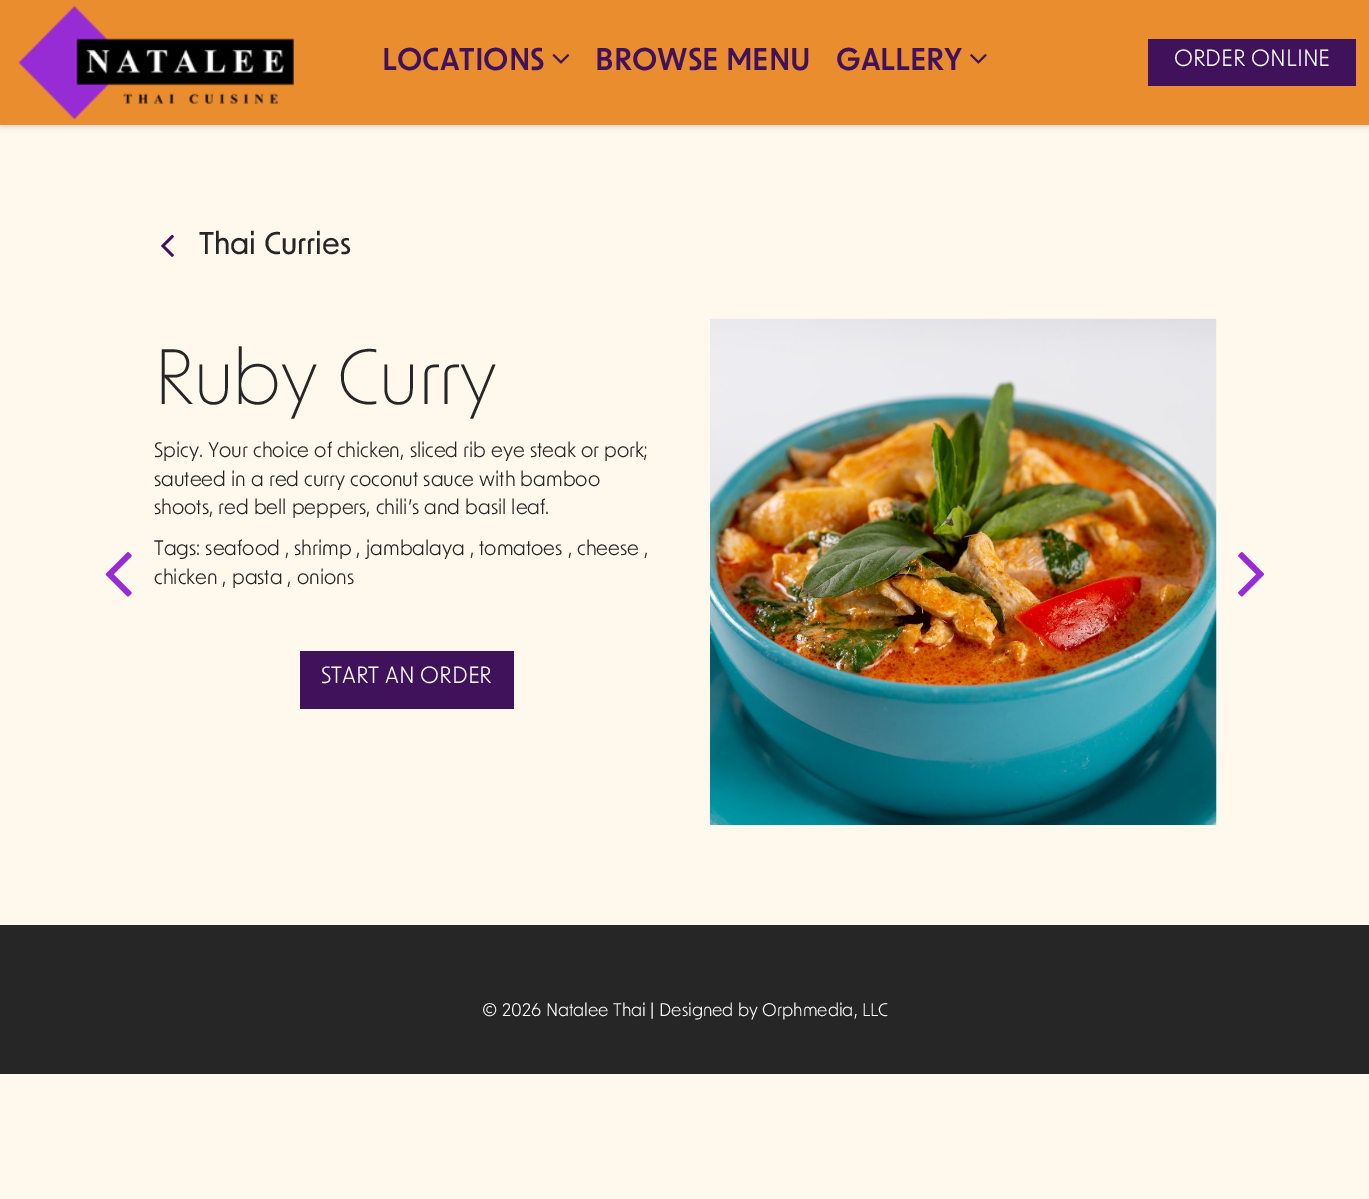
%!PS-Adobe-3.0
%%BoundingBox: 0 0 1369 1199
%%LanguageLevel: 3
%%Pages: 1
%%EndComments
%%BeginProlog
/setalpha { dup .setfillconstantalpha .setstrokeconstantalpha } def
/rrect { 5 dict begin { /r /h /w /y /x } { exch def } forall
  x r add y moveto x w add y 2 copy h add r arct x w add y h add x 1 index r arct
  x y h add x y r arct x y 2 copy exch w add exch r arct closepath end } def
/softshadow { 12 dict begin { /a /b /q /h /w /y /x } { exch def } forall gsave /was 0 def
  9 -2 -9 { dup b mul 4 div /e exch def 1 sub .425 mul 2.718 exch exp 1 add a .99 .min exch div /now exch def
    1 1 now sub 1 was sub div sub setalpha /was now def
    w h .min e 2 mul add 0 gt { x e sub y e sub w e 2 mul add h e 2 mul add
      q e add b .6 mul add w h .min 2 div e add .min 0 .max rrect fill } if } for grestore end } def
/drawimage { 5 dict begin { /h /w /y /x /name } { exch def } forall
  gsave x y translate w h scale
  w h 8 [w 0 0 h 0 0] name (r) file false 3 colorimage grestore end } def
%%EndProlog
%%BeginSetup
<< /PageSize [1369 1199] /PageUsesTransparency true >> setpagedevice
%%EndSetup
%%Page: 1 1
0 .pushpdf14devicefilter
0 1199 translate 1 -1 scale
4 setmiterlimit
1 0.973 0.929 setrgbcolor
0 0 1369 1199 rectfill
0 setgray
0 3 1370 125 0 2 0.1 softshadow
0.918 0.553 0.18 setrgbcolor
0 0 1369 125 rectfill
(images/1.raw) 18 6 276 113 drawimage
(images/2.raw) 552 54 18 10 drawimage
(images/3.raw) 970 54 17 10 drawimage
0.255 0.071 0.361 setrgbcolor
1148 39 208 47 rectfill
(images/4.raw) 161 234 13 23 drawimage
(images/5.raw) 710 318 507 507 drawimage
(images/6.raw) 105 552 27 45 drawimage
(images/7.raw) 1238 552 26 45 drawimage
300 651 214 58 rectfill
0.153 0.149 0.149 setrgbcolor
0 925 1369 149 rectfill
/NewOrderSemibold-SemiBold [30 0 0 -30 0 0] selectfont
0.255 0.071 0.361 setrgbcolor
382 70 moveto (LOCATIONS) show
595 70 moveto (BROWSE MENU) show
836 70 moveto (GALLERY) show
/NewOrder-Regular [22.5 0 0 -22.5 0 0] selectfont
1 setgray
1174 66 moveto (ORDER ONLINE) show
/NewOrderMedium-Medium [30 0 0 -30 0 0] selectfont
0.153 0.149 0.149 setrgbcolor
199 254 moveto (Thai Curries) show
/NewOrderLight-Light [75 0 0 -75 0 0] selectfont
154 404 moveto (Ruby Curry) show
/NewOrder-Regular [20 0 0 -20 0 0] selectfont
154 457 moveto (Spicy. Your choice of chicken, sliced rib eye steak or pork;) show
154 486 moveto (sauteed in a red curry coconut sauce with bamboo) show
154 514 moveto (shoots, red bell peppers, chili’s and basil leaf.) show
154 555 moveto (Tags: seafood , shrimp , jambalaya , tomatoes , cheese ,) show
154 584 moveto (chicken , pasta , onions) show
/NewOrder-Regular [22.5 0 0 -22.5 0 0] selectfont
1 setgray
321 683 moveto (START AN ORDER) show
/NewOrder-Regular [17.5 0 0 -17.5 0 0] selectfont
482 1016 moveto (© 2026 Natalee Thai | Designed by Orphmedia, LLC) show
.poppdf14devicefilter showpage
%%EOF
